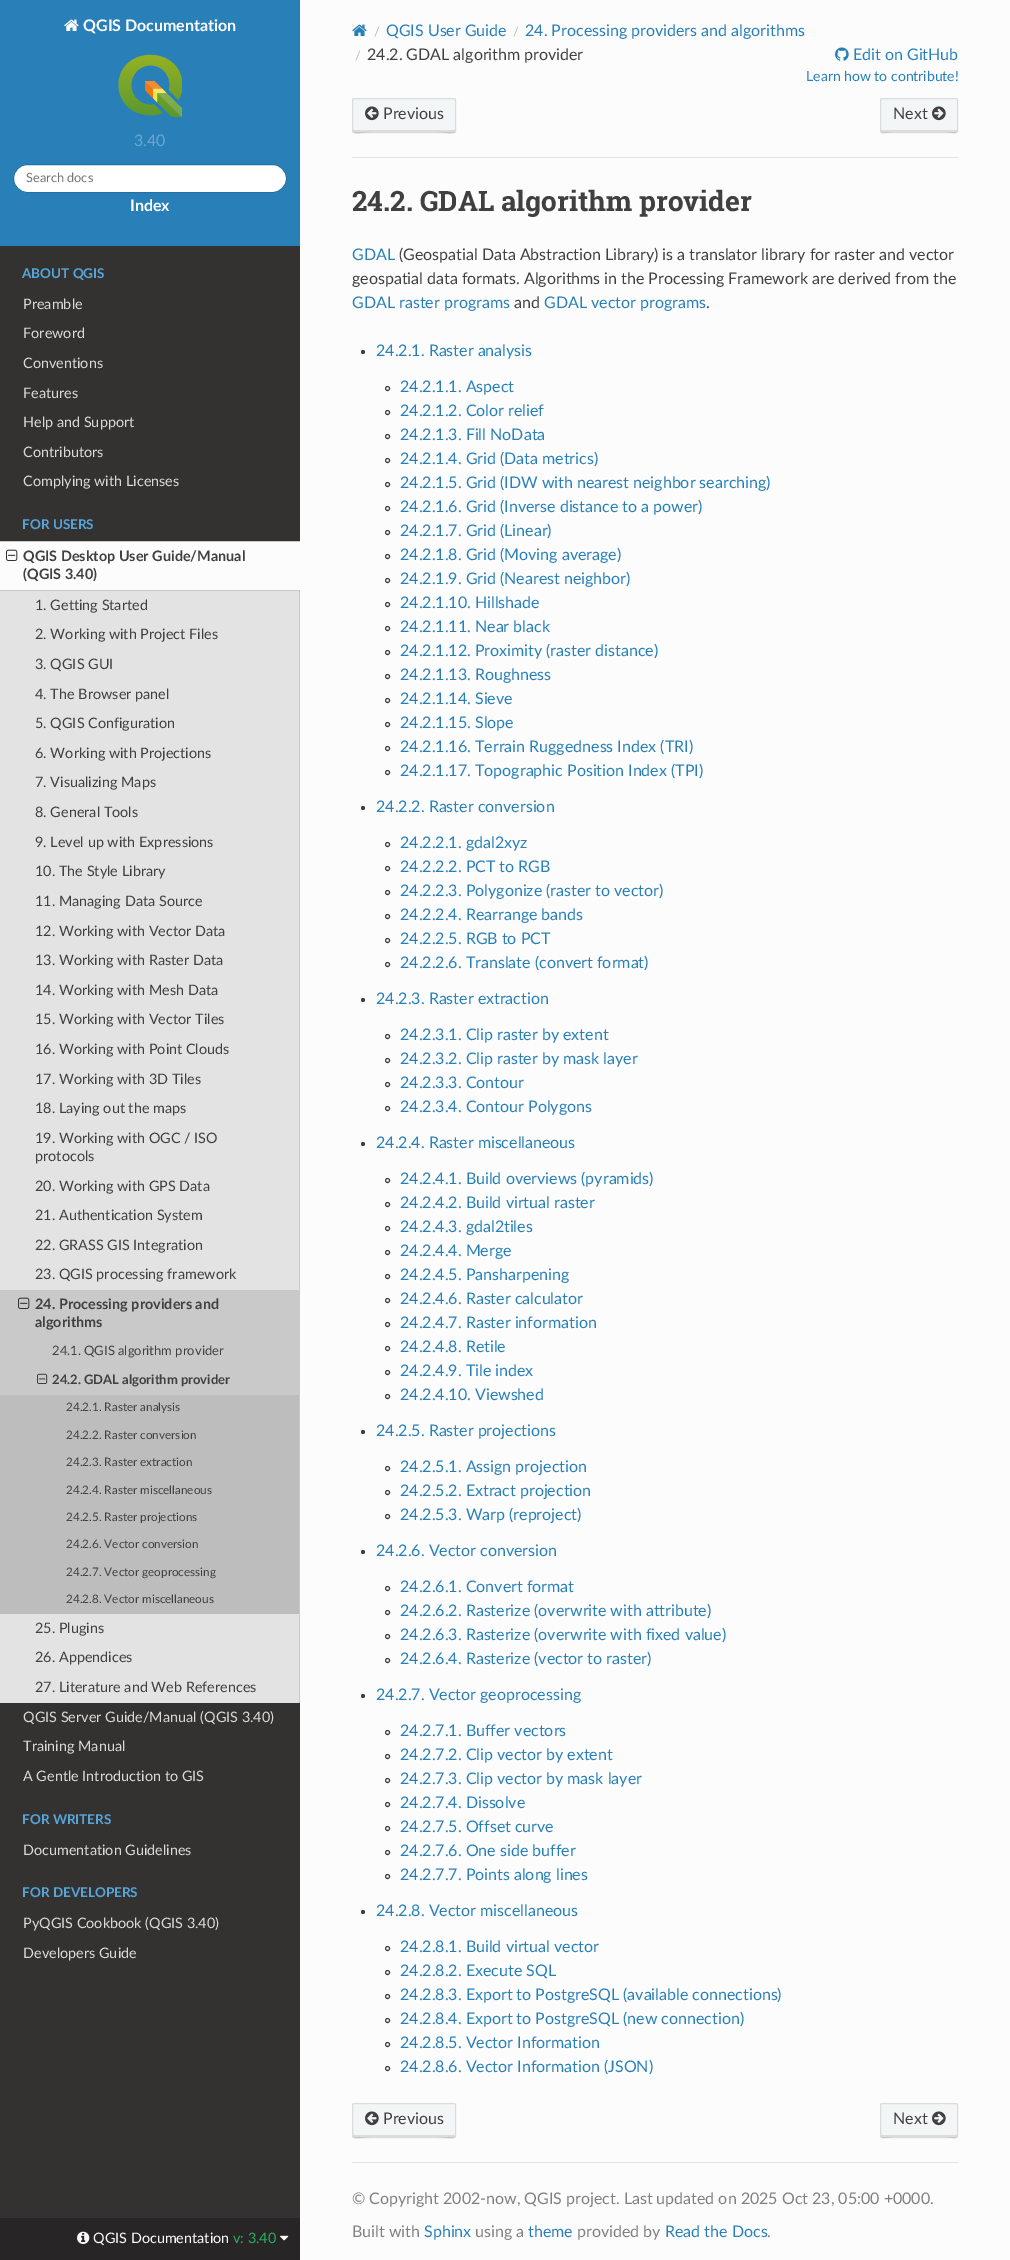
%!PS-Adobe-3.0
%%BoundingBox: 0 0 1010 2260
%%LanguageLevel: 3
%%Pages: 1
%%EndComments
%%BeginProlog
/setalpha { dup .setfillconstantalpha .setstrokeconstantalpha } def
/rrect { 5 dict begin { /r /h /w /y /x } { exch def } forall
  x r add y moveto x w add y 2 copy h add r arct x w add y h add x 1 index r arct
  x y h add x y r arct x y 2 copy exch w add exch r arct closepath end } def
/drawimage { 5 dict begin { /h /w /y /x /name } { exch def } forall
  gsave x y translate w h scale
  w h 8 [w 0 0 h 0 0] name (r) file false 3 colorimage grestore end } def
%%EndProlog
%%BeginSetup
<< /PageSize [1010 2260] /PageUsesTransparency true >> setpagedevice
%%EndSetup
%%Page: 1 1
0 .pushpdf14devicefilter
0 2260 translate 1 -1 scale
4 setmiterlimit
0.988 setgray
0 0 1010 2260 rectfill
0.204 0.192 0.192 setrgbcolor
0 246 300 1972 rectfill
0.161 0.502 0.725 setrgbcolor
0 0 300 246 rectfill
(images/1.raw) 64 19 15 12 drawimage
(images/2.raw) 118 54 64 63 drawimage
1 setgray
13.5 164.5 273 28 14 rrect gsave fill grestore
0.141 0.447 0.643 setrgbcolor
stroke
0.89 setgray
0 591 299 1112 rectfill
0.988 setgray
0 542 300 48 rectfill
0.788 setgray
0 541 300 1 rectfill
0 590 300 1 rectfill
(images/3.raw) 6 549 12 12 drawimage
299 591 1 699 rectfill
0 1290 300 105 rectfill
(images/4.raw) 18 1297 12 12 drawimage
(images/5.raw) 37 1373 11 11 drawimage
0.741 setgray
0 1395 299 219 rectfill
0.788 setgray
299 1395 1 308 rectfill
(images/6.raw) 352 24 15 12 drawimage
(images/7.raw) 835 47 14 14 drawimage
0.953 0.965 0.965 setrgbcolor
352 98 104 35 2 rrect fill
0.859 0.867 0.867 setrgbcolor
newpath 353 129 moveto 353 137 361 132 371 132 curveto 437 132 lineto 447 132 455 137 455 129 curveto 455 130 455 130 454 130 curveto 354 130 lineto 353 130 353 130 353 129 curveto closepath fill
0.1 setalpha
0 setgray
352.5 98.5 103 34 1.5 rrect stroke
1 setalpha
(images/8.raw) 365 106 14 15 drawimage
0.953 0.965 0.965 setrgbcolor
880 98 78 35 2 rrect fill
0.859 0.867 0.867 setrgbcolor
newpath 881 129 moveto 881 136 886 132 894 132 curveto 944 132 lineto 952 132 957 136 957 129 curveto 957 130 957 130 956 130 curveto 881 130 lineto closepath fill
0.1 setalpha
0 setgray
880.5 98.5 77 34 1.5 rrect stroke
1 setalpha
(images/9.raw) 932 106 14 15 drawimage
0.882 0.894 0.898 setrgbcolor
352 157 606 1 rectfill
0.251 setgray
newpath 363 352 2 0 360 arc closepath fill
newpath 387.5 388.5 2 0 360 arc closepath stroke
newpath 387.5 412.5 2 0 360 arc closepath stroke
newpath 387.5 436.5 2 0 360 arc closepath stroke
newpath 387.5 460.5 2 0 360 arc closepath stroke
newpath 387.5 484.5 2 0 360 arc closepath stroke
newpath 387.5 508.5 2 0 360 arc closepath stroke
newpath 387.5 532.5 2 0 360 arc closepath stroke
newpath 387.5 556.5 2 0 360 arc closepath stroke
newpath 387.5 580.5 2 0 360 arc closepath stroke
newpath 387.5 604.5 2 0 360 arc closepath stroke
newpath 387.5 628.5 2 0 360 arc closepath stroke
newpath 387.5 652.5 2 0 360 arc closepath stroke
newpath 387.5 676.5 2 0 360 arc closepath stroke
newpath 387.5 700.5 2 0 360 arc closepath stroke
newpath 387.5 724.5 2 0 360 arc closepath stroke
newpath 387.5 748.5 2 0 360 arc closepath stroke
newpath 387.5 772.5 2 0 360 arc closepath stroke
newpath 363 808 2 0 360 arc closepath fill
newpath 387.5 844.5 2 0 360 arc closepath stroke
newpath 387.5 868.5 2 0 360 arc closepath stroke
newpath 387.5 892.5 2 0 360 arc closepath stroke
newpath 387.5 916.5 2 0 360 arc closepath stroke
newpath 387.5 940.5 2 0 360 arc closepath stroke
newpath 387.5 964.5 2 0 360 arc closepath stroke
newpath 363 1000 2 0 360 arc closepath fill
newpath 387.5 1036.5 2 0 360 arc closepath stroke
newpath 387.5 1060.5 2 0 360 arc closepath stroke
newpath 387.5 1084.5 2 0 360 arc closepath stroke
newpath 387.5 1108.5 2 0 360 arc closepath stroke
newpath 363 1144 2 0 360 arc closepath fill
newpath 387.5 1180.5 2 0 360 arc closepath stroke
newpath 387.5 1204.5 2 0 360 arc closepath stroke
newpath 387.5 1228.5 2 0 360 arc closepath stroke
newpath 387.5 1252.5 2 0 360 arc closepath stroke
newpath 387.5 1276.5 2 0 360 arc closepath stroke
newpath 387.5 1300.5 2 0 360 arc closepath stroke
newpath 387.5 1324.5 2 0 360 arc closepath stroke
newpath 387.5 1348.5 2 0 360 arc closepath stroke
newpath 387.5 1372.5 2 0 360 arc closepath stroke
newpath 387.5 1396.5 2 0 360 arc closepath stroke
newpath 363 1432 2 0 360 arc closepath fill
newpath 387.5 1468.5 2 0 360 arc closepath stroke
newpath 387.5 1492.5 2 0 360 arc closepath stroke
newpath 387.5 1516.5 2 0 360 arc closepath stroke
newpath 363 1552 2 0 360 arc closepath fill
newpath 387.5 1588.5 2 0 360 arc closepath stroke
newpath 387.5 1612.5 2 0 360 arc closepath stroke
newpath 387.5 1636.5 2 0 360 arc closepath stroke
newpath 387.5 1660.5 2 0 360 arc closepath stroke
newpath 363 1696 2 0 360 arc closepath fill
newpath 387.5 1732.5 2 0 360 arc closepath stroke
newpath 387.5 1756.5 2 0 360 arc closepath stroke
newpath 387.5 1780.5 2 0 360 arc closepath stroke
newpath 387.5 1804.5 2 0 360 arc closepath stroke
newpath 387.5 1828.5 2 0 360 arc closepath stroke
newpath 387.5 1852.5 2 0 360 arc closepath stroke
newpath 387.5 1876.5 2 0 360 arc closepath stroke
newpath 363 1912 2 0 360 arc closepath fill
newpath 387.5 1948.5 2 0 360 arc closepath stroke
newpath 387.5 1972.5 2 0 360 arc closepath stroke
newpath 387.5 1996.5 2 0 360 arc closepath stroke
newpath 387.5 2020.5 2 0 360 arc closepath stroke
newpath 387.5 2044.5 2 0 360 arc closepath stroke
newpath 387.5 2068.5 2 0 360 arc closepath stroke
0.953 0.965 0.965 setrgbcolor
352 2103 104 35 2 rrect fill
0.859 0.867 0.867 setrgbcolor
newpath 353 2134 moveto 353 2142 361 2137 371 2137 curveto 437 2137 lineto 447 2137 455 2142 455 2134 curveto 455 2135 455 2135 454 2135 curveto 354 2135 lineto 353 2135 353 2135 353 2134 curveto closepath fill
0.1 setalpha
0 setgray
352.5 2103.5 103 34 1.5 rrect stroke
1 setalpha
(images/8.raw) 365 2111 14 15 drawimage
0.953 0.965 0.965 setrgbcolor
880 2103 78 35 2 rrect fill
0.859 0.867 0.867 setrgbcolor
newpath 881 2134 moveto 881 2141 886 2137 894 2137 curveto 944 2137 lineto 952 2137 957 2141 957 2134 curveto 957 2135 957 2135 956 2135 curveto 881 2135 lineto closepath fill
0.1 setalpha
0 setgray
880.5 2103.5 77 34 1.5 rrect stroke
1 setalpha
(images/9.raw) 932 2111 14 15 drawimage
0.882 0.894 0.898 setrgbcolor
352 2162 606 1 rectfill
0.153 0.145 0.145 setrgbcolor
0 2218 300 42 rectfill
(images/10.raw) 77 2231 13 13 drawimage
(images/11.raw) 280 2235 9 6 drawimage
/Lato-Bold [16 0 0 -16 0 0] selectfont
0.988 setgray
83 31 moveto (QGIS Documentation) show
/Lato-Regular [16 0 0 -16 0 0] selectfont
0.412 0.651 0.808 setrgbcolor
134 146 moveto (3.40) show
/Lato-Regular [12.75 0 0 -12.75 0 0] selectfont
0.459 setgray
26 182 moveto (Search docs) show
/Lato-Bold [16 0 0 -16 0 0] selectfont
0.988 setgray
130 211 moveto (Index) show
/Lato-Bold [13.5 0 0 -13.5 0 0] selectfont
0.333 0.647 0.851 setrgbcolor
22 278 moveto (ABOUT QGIS) show
/Lato-Regular [14.4 0 0 -14.4 0 0] selectfont
0.851 setgray
23 309 moveto (Preamble) show
23 338 moveto (Foreword) show
23 368 moveto (Conventions) show
23 398 moveto (Features) show
23 427 moveto (Help and Support) show
23 457 moveto (Contributors) show
23 486 moveto (Complying with Licenses) show
/Lato-Bold [13.5 0 0 -13.5 0 0] selectfont
0.333 0.647 0.851 setrgbcolor
22 529 moveto (FOR USERS) show
/Lato-Bold [14.4 0 0 -14.4 0 0] selectfont
0.251 setgray
23 561 moveto (QGIS Desktop User Guide/Manual) show
23 579 moveto (\(QGIS 3.40\)) show
/Lato-Regular [14.4 0 0 -14.4 0 0] selectfont
35 610 moveto (1. Getting Started) show
35 639 moveto (2. Working with Project Files) show
35 669 moveto (3. QGIS GUI) show
35 699 moveto (4. The Browser panel) show
35 728 moveto (5. QGIS Configuration) show
35 758 moveto (6. Working with Projections) show
35 787 moveto (7. Visualizing Maps) show
35 817 moveto (8. General Tools) show
35 847 moveto (9. Level up with Expressions) show
35 876 moveto (10. The Style Library) show
35 906 moveto (11. Managing Data Source) show
35 936 moveto (12. Working with Vector Data) show
35 965 moveto (13. Working with Raster Data) show
35 995 moveto (14. Working with Mesh Data) show
35 1024 moveto (15. Working with Vector Tiles) show
35 1054 moveto (16. Working with Point Clouds) show
35 1084 moveto (17. Working with 3D Tiles) show
35 1113 moveto (18. Laying out the maps) show
35 1143 moveto (19. Working with OGC / ISO) show
35 1161 moveto (protocols) show
35 1191 moveto (20. Working with GPS Data) show
35 1220 moveto (21. Authentication System) show
35 1250 moveto (22. GRASS GIS Integration) show
35 1279 moveto (23. QGIS processing framework) show
/Lato-Bold [14.4 0 0 -14.4 0 0] selectfont
35 1309 moveto (24. Processing providers and) show
35 1327 moveto (algorithms) show
/Lato-Regular [13 0 0 -13 0 0] selectfont
52 1355 moveto (24.1. QGIS algorithm provider) show
/Lato-Bold [13 0 0 -13 0 0] selectfont
52 1384 moveto (24.2. GDAL algorithm provider) show
/Lato-Regular [11.7 0 0 -11.7 0 0] selectfont
66 1411 moveto (24.2.1. Raster analysis) show
66 1439 moveto (24.2.2. Raster conversion) show
66 1466 moveto (24.2.3. Raster extraction) show
66 1494 moveto (24.2.4. Raster miscellaneous) show
66 1521 moveto (24.2.5. Raster projections) show
66 1548 moveto (24.2.6. Vector conversion) show
66 1576 moveto (24.2.7. Vector geoprocessing) show
66 1603 moveto (24.2.8. Vector miscellaneous) show
/Lato-Regular [14.4 0 0 -14.4 0 0] selectfont
35 1633 moveto (25. Plugins) show
35 1662 moveto (26. Appendices) show
35 1692 moveto (27. Literature and Web References) show
0.851 setgray
23 1722 moveto (QGIS Server Guide/Manual \(QGIS 3.40\)) show
23 1751 moveto (Training Manual) show
23 1781 moveto (A Gentle Introduction to GIS) show
/Lato-Bold [13.5 0 0 -13.5 0 0] selectfont
0.333 0.647 0.851 setrgbcolor
22 1824 moveto (FOR WRITERS) show
/Lato-Regular [14.4 0 0 -14.4 0 0] selectfont
0.851 setgray
23 1855 moveto (Documentation Guidelines) show
/Lato-Bold [13.5 0 0 -13.5 0 0] selectfont
0.333 0.647 0.851 setrgbcolor
22 1897 moveto (FOR DEVELOPERS) show
/Lato-Regular [14.4 0 0 -14.4 0 0] selectfont
0.851 setgray
23 1928 moveto (PyQGIS Cookbook \(QGIS 3.40\)) show
23 1958 moveto (Developers Guide) show
/Lato-Regular [13 0 0 -13 0 0] selectfont
0.733 setgray
374 36 moveto (/) show
/Lato-Regular [16 0 0 -16 0 0] selectfont
0.161 0.502 0.725 setrgbcolor
386 36 moveto (QGIS User Guide) show
/Lato-Regular [13 0 0 -13 0 0] selectfont
0.733 setgray
513 36 moveto (/) show
/Lato-Regular [16 0 0 -16 0 0] selectfont
0.161 0.502 0.725 setrgbcolor
525 36 moveto (24. Processing providers and algorithms) show
/Lato-Regular [13 0 0 -13 0 0] selectfont
0.733 setgray
355 60 moveto (/) show
/Lato-Regular [16 0 0 -16 0 0] selectfont
0.251 setgray
367 60 moveto (24.2. GDAL algorithm provider) show
0.161 0.502 0.725 setrgbcolor
853 60 moveto (Edit on GitHub) show
/Lato-Regular [14 0 0 -14 0 0] selectfont
806 81 moveto (Learn how to contribute!) show
/Lato-Regular [16 0 0 -16 0 0] selectfont
0.251 setgray
383 119 moveto (Previous) show
893 119 moveto (Next) show
/RobotoSlab-Bold [28 0 0 -28 0 0] selectfont
352 211 moveto (24.2. GDAL algorithm provider) show
/Lato-Regular [16 0 0 -16 0 0] selectfont
0.161 0.502 0.725 setrgbcolor
352 260 moveto (GDAL) show
0.251 setgray
399 260 moveto (\(Geospatial Data Abstraction Library\) is a translator library for raster and vector) show
352 284 moveto (geospatial data formats. Algorithms in the Processing Framework are derived from the) show
0.161 0.502 0.725 setrgbcolor
352 308 moveto (GDAL raster programs) show
0.251 setgray
514 308 moveto (and) show
0.161 0.502 0.725 setrgbcolor
544 308 moveto (GDAL vector programs) show
0.251 setgray
706 308 moveto (.) show
0.161 0.502 0.725 setrgbcolor
376 356 moveto (24.2.1. Raster analysis) show
400 392 moveto (24.2.1.1. Aspect) show
400 416 moveto (24.2.1.2. Color relief) show
400 440 moveto (24.2.1.3. Fill NoData) show
400 464 moveto (24.2.1.4. Grid \(Data metrics\)) show
400 488 moveto (24.2.1.5. Grid \(IDW with nearest neighbor searching\)) show
400 512 moveto (24.2.1.6. Grid \(Inverse distance to a power\)) show
400 536 moveto (24.2.1.7. Grid \(Linear\)) show
400 560 moveto (24.2.1.8. Grid \(Moving average\)) show
400 584 moveto (24.2.1.9. Grid \(Nearest neighbor\)) show
400 608 moveto (24.2.1.10. Hillshade) show
400 632 moveto (24.2.1.11. Near black) show
400 656 moveto (24.2.1.12. Proximity \(raster distance\)) show
400 680 moveto (24.2.1.13. Roughness) show
400 704 moveto (24.2.1.14. Sieve) show
400 728 moveto (24.2.1.15. Slope) show
400 752 moveto (24.2.1.16. Terrain Ruggedness Index \(TRI\)) show
400 776 moveto (24.2.1.17. Topographic Position Index \(TPI\)) show
376 812 moveto (24.2.2. Raster conversion) show
400 848 moveto (24.2.2.1. gdal2xyz) show
400 872 moveto (24.2.2.2. PCT to RGB) show
400 896 moveto (24.2.2.3. Polygonize \(raster to vector\)) show
400 920 moveto (24.2.2.4. Rearrange bands) show
400 944 moveto (24.2.2.5. RGB to PCT) show
400 968 moveto (24.2.2.6. Translate \(convert format\)) show
376 1004 moveto (24.2.3. Raster extraction) show
400 1040 moveto (24.2.3.1. Clip raster by extent) show
400 1064 moveto (24.2.3.2. Clip raster by mask layer) show
400 1088 moveto (24.2.3.3. Contour) show
400 1112 moveto (24.2.3.4. Contour Polygons) show
376 1148 moveto (24.2.4. Raster miscellaneous) show
400 1184 moveto (24.2.4.1. Build overviews \(pyramids\)) show
400 1208 moveto (24.2.4.2. Build virtual raster) show
400 1232 moveto (24.2.4.3. gdal2tiles) show
400 1256 moveto (24.2.4.4. Merge) show
400 1280 moveto (24.2.4.5. Pansharpening) show
400 1304 moveto (24.2.4.6. Raster calculator) show
400 1328 moveto (24.2.4.7. Raster information) show
400 1352 moveto (24.2.4.8. Retile) show
400 1376 moveto (24.2.4.9. Tile index) show
400 1400 moveto (24.2.4.10. Viewshed) show
376 1436 moveto (24.2.5. Raster projections) show
400 1472 moveto (24.2.5.1. Assign projection) show
400 1496 moveto (24.2.5.2. Extract projection) show
400 1520 moveto (24.2.5.3. Warp \(reproject\)) show
376 1556 moveto (24.2.6. Vector conversion) show
400 1592 moveto (24.2.6.1. Convert format) show
400 1616 moveto (24.2.6.2. Rasterize \(overwrite with attribute\)) show
400 1640 moveto (24.2.6.3. Rasterize \(overwrite with fixed value\)) show
400 1664 moveto (24.2.6.4. Rasterize \(vector to raster\)) show
376 1700 moveto (24.2.7. Vector geoprocessing) show
400 1736 moveto (24.2.7.1. Buffer vectors) show
400 1760 moveto (24.2.7.2. Clip vector by extent) show
400 1784 moveto (24.2.7.3. Clip vector by mask layer) show
400 1808 moveto (24.2.7.4. Dissolve) show
400 1832 moveto (24.2.7.5. Offset curve) show
400 1856 moveto (24.2.7.6. One side buffer) show
400 1880 moveto (24.2.7.7. Points along lines) show
376 1916 moveto (24.2.8. Vector miscellaneous) show
400 1952 moveto (24.2.8.1. Build virtual vector) show
400 1976 moveto (24.2.8.2. Execute SQL) show
400 2000 moveto (24.2.8.3. Export to PostgreSQL \(available connections\)) show
400 2024 moveto (24.2.8.4. Export to PostgreSQL \(new connection\)) show
400 2048 moveto (24.2.8.5. Vector Information) show
400 2072 moveto (24.2.8.6. Vector Information \(JSON\)) show
0.251 setgray
383 2124 moveto (Previous) show
893 2124 moveto (Next) show
0.502 setgray
352 2204 moveto (© Copyright 2002-now, QGIS project. Last updated on 2025 Oct 23, 05:00 +0000.) show
352 2237 moveto (Built with) show
0.161 0.502 0.725 setrgbcolor
424 2237 moveto (Sphinx) show
0.502 setgray
475 2237 moveto (using a) show
0.161 0.502 0.725 setrgbcolor
528 2237 moveto (theme) show
0.502 setgray
577 2237 moveto (provided by) show
0.161 0.502 0.725 setrgbcolor
665 2237 moveto (Read the Docs) show
0.502 setgray
767 2237 moveto (.) show
/Lato-Regular [14.4 0 0 -14.4 0 0] selectfont
0.988 setgray
93 2243 moveto (QGIS Documentation) show
0.153 0.682 0.376 setrgbcolor
233 2243 moveto (v: 3.40) show
.poppdf14devicefilter showpage
%%EOF
